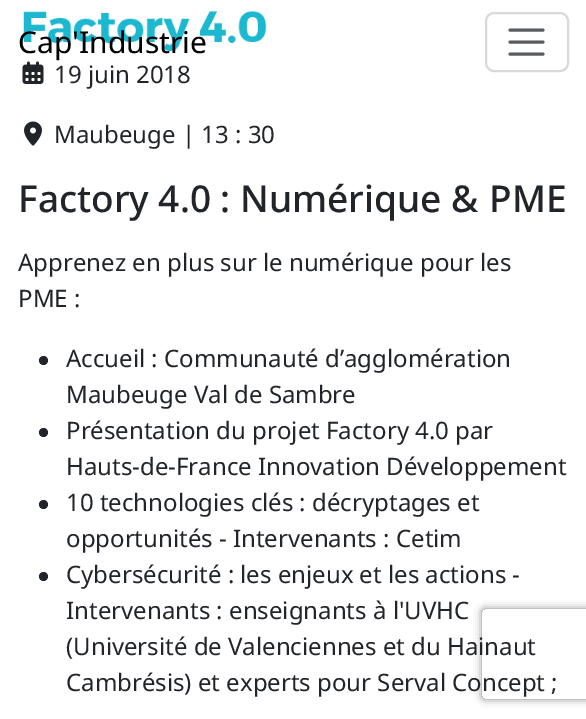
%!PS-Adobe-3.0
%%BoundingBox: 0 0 586 719
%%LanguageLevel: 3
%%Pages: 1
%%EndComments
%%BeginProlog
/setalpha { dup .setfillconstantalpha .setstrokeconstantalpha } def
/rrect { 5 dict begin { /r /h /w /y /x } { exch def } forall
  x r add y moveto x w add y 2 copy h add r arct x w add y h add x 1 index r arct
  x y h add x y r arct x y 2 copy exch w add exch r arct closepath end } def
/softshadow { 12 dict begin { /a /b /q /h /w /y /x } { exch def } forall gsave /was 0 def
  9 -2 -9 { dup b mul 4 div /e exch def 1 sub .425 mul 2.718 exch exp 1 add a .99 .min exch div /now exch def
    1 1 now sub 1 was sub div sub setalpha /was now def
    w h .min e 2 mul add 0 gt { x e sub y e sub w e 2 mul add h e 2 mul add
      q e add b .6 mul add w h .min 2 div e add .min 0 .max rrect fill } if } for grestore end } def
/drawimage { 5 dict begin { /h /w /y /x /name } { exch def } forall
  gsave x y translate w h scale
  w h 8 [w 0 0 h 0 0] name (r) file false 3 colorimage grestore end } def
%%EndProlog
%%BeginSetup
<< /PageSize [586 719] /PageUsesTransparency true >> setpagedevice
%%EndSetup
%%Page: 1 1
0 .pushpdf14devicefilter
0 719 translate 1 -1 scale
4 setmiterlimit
1 setgray
0 0 586 719 rectfill
0.851 setgray
2 setlinewidth
486 13 82 58 8 rrect stroke
0.349 0.361 0.373 setrgbcolor
3 setlinewidth
1 setlinecap
newpath 510 30 moveto 543 30 lineto 510 42 moveto 543 42 lineto 510 54 moveto 543 54 lineto stroke
(images/1.raw) 23 11 244 40 drawimage
(images/2.raw) 22 61 22 23 drawimage
(images/3.raw) 24 121 18 25 drawimage
0.129 0.145 0.161 setrgbcolor
newpath 43.5 360.5 4.5 0 360 arc closepath fill
newpath 43.5 432.5 4.5 0 360 arc closepath fill
newpath 43.5 504.5 4.5 0 360 arc closepath fill
newpath 43.5 576.5 4.5 0 360 arc closepath fill
gsave
newpath 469 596 moveto 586 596 lineto 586 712 lineto 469 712 lineto closepath 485 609 moveto 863 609 lineto 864.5 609 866 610.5 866 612 curveto 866 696 lineto 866 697.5 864.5 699 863 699 curveto 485 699 lineto 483.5 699 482 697.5 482 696 curveto 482 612 lineto 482 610.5 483.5 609 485 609 curveto closepath eoclip newpath
0.502 setgray
482 609 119 90 3 4 1 softshadow
grestore
/NotoSans-Regular [30 0 0 -30 0 0] selectfont
0 setgray
18 53 moveto (Cap'Industrie) show
/NotoSans-Regular [24 0 0 -24 0 0] selectfont
0.129 0.145 0.161 setrgbcolor
54 83 moveto (19 juin 2018) show
54 143 moveto (Maubeuge | 13 : 30) show
/NotoSans-Medium [37 0 0 -37 0 0] selectfont
18 212 moveto (Factory 4.0 : Numérique &) show
489 212 moveto (PME) show
/NotoSans-Regular [24 0 0 -24 0 0] selectfont
18 271 moveto (Apprenez en plus sur le numérique pour les) show
18 307 moveto (PME :) show
66 367 moveto (Accueil : Communauté d’agglomération) show
66 403 moveto (Maubeuge Val de Sambre) show
66 439 moveto (Présentation du projet Factory 4.0 par) show
66 475 moveto (Hauts-de-France Innovation Développement) show
66 511 moveto (10 technologies clés : décryptages et) show
66 547 moveto (opportunités - Intervenants : Cetim) show
66 583 moveto (Cybersécurité : les enjeux et les actions -) show
66 619 moveto (Intervenants : enseignants à l'UVHC) show
66 655 moveto (\(Université de Valenciennes et du Hainaut) show
66 691 moveto (Cambrésis\) et experts pour Serval Concept ;) show
.poppdf14devicefilter showpage
%%EOF
